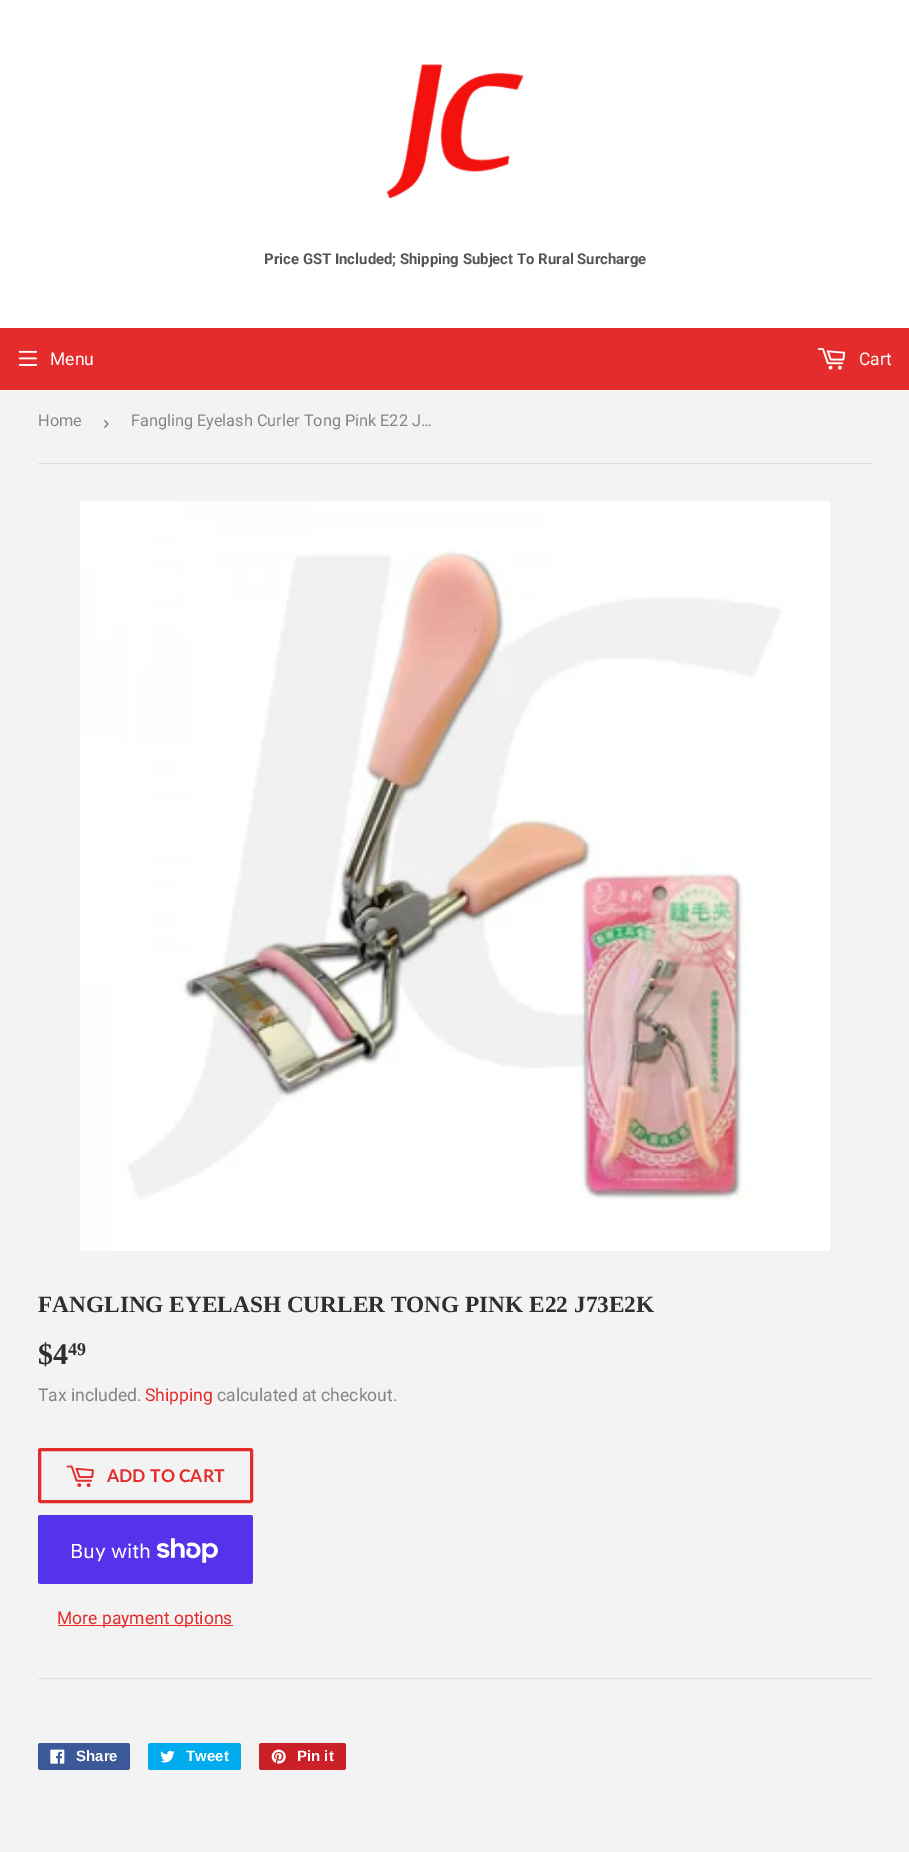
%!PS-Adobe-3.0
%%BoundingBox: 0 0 909 1852
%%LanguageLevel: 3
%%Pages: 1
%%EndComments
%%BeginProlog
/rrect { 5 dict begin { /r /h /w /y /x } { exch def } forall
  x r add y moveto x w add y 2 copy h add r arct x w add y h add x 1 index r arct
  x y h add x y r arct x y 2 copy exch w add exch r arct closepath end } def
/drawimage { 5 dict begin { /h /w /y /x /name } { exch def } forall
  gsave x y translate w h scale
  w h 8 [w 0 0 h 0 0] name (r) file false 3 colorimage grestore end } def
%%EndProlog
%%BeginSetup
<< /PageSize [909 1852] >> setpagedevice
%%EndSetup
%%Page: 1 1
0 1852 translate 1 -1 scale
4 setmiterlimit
0.953 setgray
0 0 909 1852 rectfill
1 setgray
0 0 909 328 rectfill
(images/1.raw) 386 63 139 139 drawimage
0.89 0.173 0.169 setrgbcolor
0 328 909 62 rectfill
(images/2.raw) 18 350 20 16 drawimage
(images/3.raw) 817 348 29 22 drawimage
0.871 setgray
38 463 835 1 rectfill
(images/4.raw) 80 501 750 750 drawimage
0.89 0.173 0.169 setrgbcolor
3 setlinewidth
39.5 1449.5 212 52 1 rrect stroke
(images/5.raw) 66 1465 28 23 drawimage
0.329 0.2 0.922 setrgbcolor
38 1515 215 69 2.5 rrect fill
(images/6.raw) 156 1538 62 25 drawimage
0.89 0.173 0.169 setrgbcolor
58 1625 175 1 rectfill
0.871 setgray
38 1678 835 1 rectfill
0.231 0.349 0.596 setrgbcolor
38 1743 92 27 2.5 rrect fill
(images/7.raw) 50 1749 15 15 drawimage
0 0.675 0.929 setrgbcolor
148 1743 93 27 2.5 rrect fill
(images/8.raw) 160 1750 15 13 drawimage
0.796 0.125 0.153 setrgbcolor
259 1743 87 27 2.5 rrect fill
(images/9.raw) 271 1749 15 15 drawimage
/Roboto-Bold [14.9 0 0 -14.9 0 0] selectfont
0.329 setgray
264 264 moveto (Price GST Included; Shipping Subject To Rural Surcharge) show
/Roboto-Regular [17.5 0 0 -17.5 0 0] selectfont
1 setgray
50 365 moveto (Menu) show
859 365 moveto (Cart) show
/Roboto-Regular [16.25 0 0 -16.25 0 0] selectfont
0.522 setgray
38 426 moveto (Home) show
/LiberationSans-Regular [19 0 0 -19 0 0] selectfont
0.463 setgray
103 429 moveto (›) show
/Roboto-Regular [16.25 0 0 -16.25 0 0] selectfont
0.522 setgray
131 426 moveto (Fangling Eyelash Curler Tong Pink E22 J…) show
/LiberationSerif-Bold [23.3 0 0 -23.3 0 0] selectfont
0.184 setgray
38 1312 moveto (FANGLING EYELASH CURLER TONG PINK E22 J73E2K) show
/LiberationSerif-Bold [30 0 0 -30 0 0] selectfont
38 1364 moveto ($4) show
/LiberationSerif-Bold [18 0 0 -18 0 0] selectfont
68 1355 moveto (49) show
/Roboto-Regular [17.5 0 0 -17.5 0 0] selectfont
0.522 setgray
38 1401 moveto (Tax included.) show
0.89 0.173 0.169 setrgbcolor
145 1401 moveto (Shipping) show
0.522 setgray
217 1401 moveto (calculated at checkout.) show
/Lato-Bold [17.5 0 0 -17.5 0 0] selectfont
0.89 0.173 0.169 setrgbcolor
107 1482 moveto (ADD TO CART) show
/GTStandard-Regular [20 0 0 -20 0 0] selectfont
1 setgray
70 1558 moveto (Buy with) show
/Roboto-Regular [17.5 0 0 -17.5 0 0] selectfont
0.89 0.173 0.169 setrgbcolor
57 1624 moveto (More payment options) show
/LiberationSans-Bold [15 0 0 -15 0 0] selectfont
1 setgray
76 1761 moveto (Share) show
186 1761 moveto (Tweet) show
297 1761 moveto (Pin it) show
showpage
%%EOF
